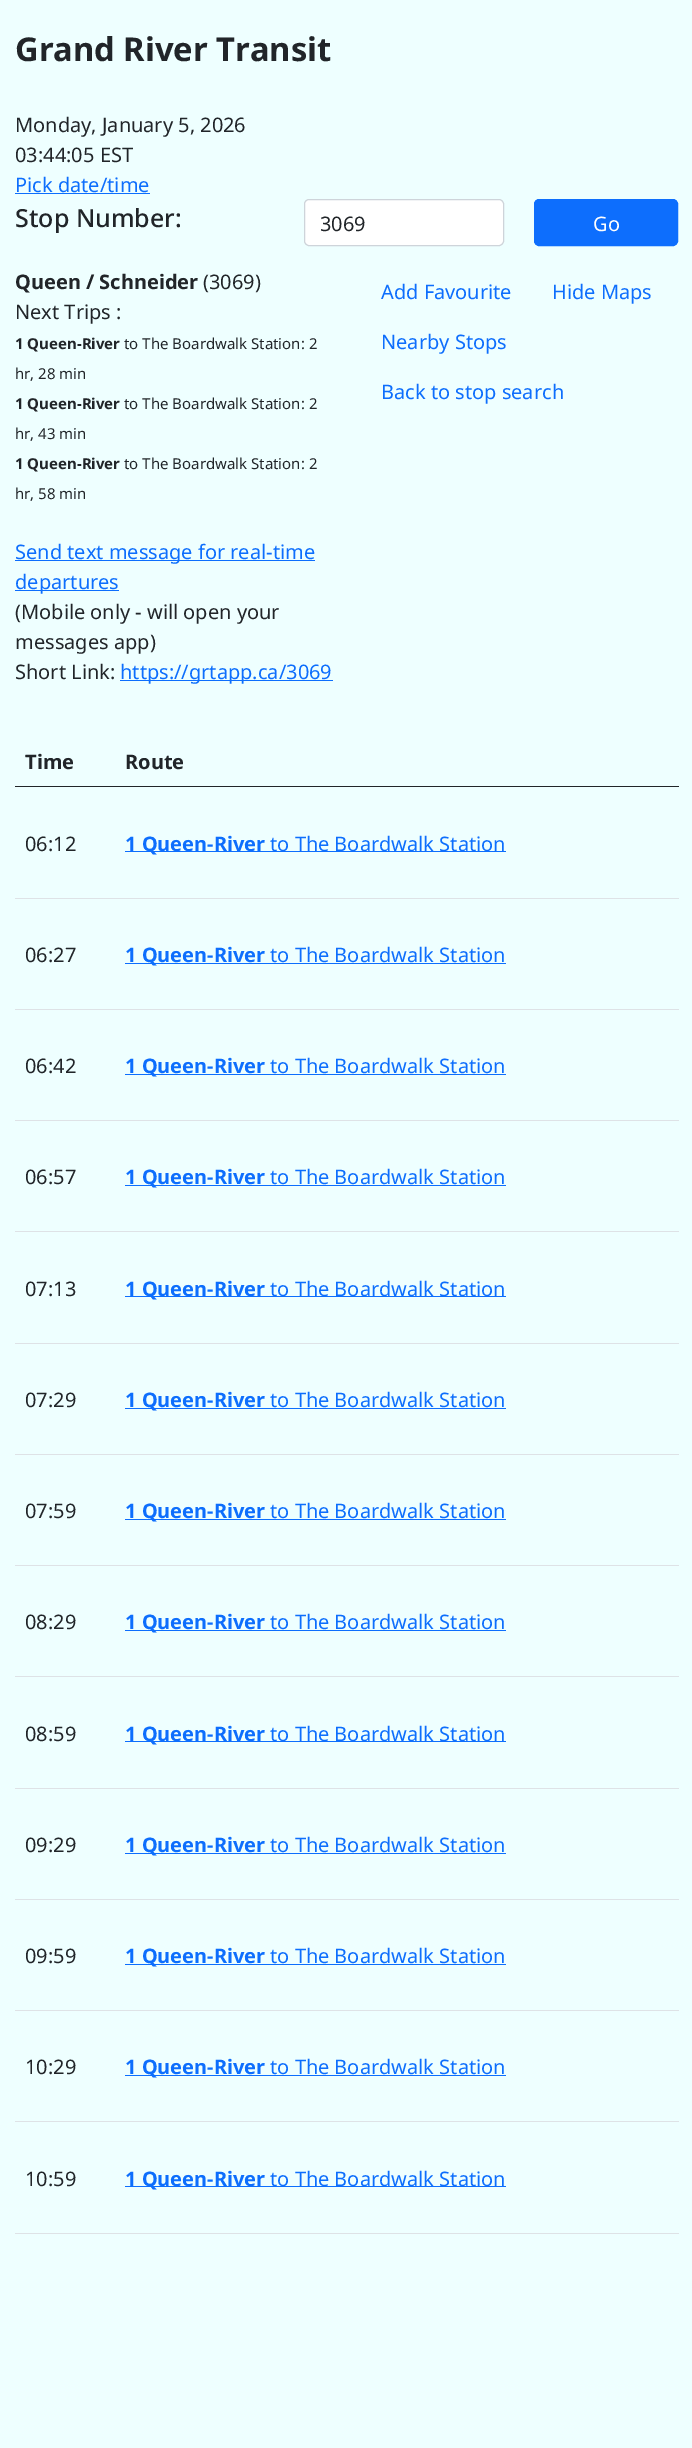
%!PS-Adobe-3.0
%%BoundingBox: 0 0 692 2448
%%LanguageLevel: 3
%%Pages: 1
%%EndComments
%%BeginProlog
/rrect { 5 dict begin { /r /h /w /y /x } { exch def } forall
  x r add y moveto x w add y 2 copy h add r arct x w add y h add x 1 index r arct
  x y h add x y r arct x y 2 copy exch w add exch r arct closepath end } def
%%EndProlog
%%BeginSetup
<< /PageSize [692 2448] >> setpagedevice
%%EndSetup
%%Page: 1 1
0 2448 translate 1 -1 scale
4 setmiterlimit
0.933 1 1 setrgbcolor
0 0 692 2448 rectfill
0.051 0.431 0.992 setrgbcolor
15 193 135 1 rectfill
1 setgray
304.5 199.5 199 46 4.5 rrect gsave fill grestore
0.808 0.831 0.855 setrgbcolor
stroke
0.051 0.431 0.992 setrgbcolor
534.5 199.5 143 46 4.5 rrect gsave fill grestore
stroke
15 560 300 1 rectfill
15 590 104 1 rectfill
120 680 213 1 rectfill
0.129 0.145 0.161 setrgbcolor
15 786 664 1 rectfill
0.871 0.886 0.902 setrgbcolor
15 898 664 1 rectfill
0.051 0.431 0.992 setrgbcolor
125 851 381 1 rectfill
0.871 0.886 0.902 setrgbcolor
15 1009 664 1 rectfill
0.051 0.431 0.992 setrgbcolor
125 963 381 1 rectfill
0.871 0.886 0.902 setrgbcolor
15 1120 664 1 rectfill
0.051 0.431 0.992 setrgbcolor
125 1074 381 1 rectfill
0.871 0.886 0.902 setrgbcolor
15 1231 664 1 rectfill
0.051 0.431 0.992 setrgbcolor
125 1185 381 1 rectfill
0.871 0.886 0.902 setrgbcolor
15 1343 664 1 rectfill
0.051 0.431 0.992 setrgbcolor
125 1296 381 1 rectfill
0.871 0.886 0.902 setrgbcolor
15 1454 664 1 rectfill
0.051 0.431 0.992 setrgbcolor
125 1408 381 1 rectfill
0.871 0.886 0.902 setrgbcolor
15 1565 664 1 rectfill
0.051 0.431 0.992 setrgbcolor
125 1519 381 1 rectfill
0.871 0.886 0.902 setrgbcolor
15 1676 664 1 rectfill
0.051 0.431 0.992 setrgbcolor
125 1630 381 1 rectfill
0.871 0.886 0.902 setrgbcolor
15 1788 664 1 rectfill
0.051 0.431 0.992 setrgbcolor
125 1741 381 1 rectfill
0.871 0.886 0.902 setrgbcolor
15 1899 664 1 rectfill
0.051 0.431 0.992 setrgbcolor
125 1853 381 1 rectfill
0.871 0.886 0.902 setrgbcolor
15 2010 664 1 rectfill
0.051 0.431 0.992 setrgbcolor
125 1964 381 1 rectfill
0.871 0.886 0.902 setrgbcolor
15 2121 664 1 rectfill
0.051 0.431 0.992 setrgbcolor
125 2075 381 1 rectfill
0.871 0.886 0.902 setrgbcolor
15 2233 664 1 rectfill
0.051 0.431 0.992 setrgbcolor
125 2186 381 1 rectfill
/NotoSans-Bold [32.75 0 0 -32.75 0 0] selectfont
0.129 0.145 0.161 setrgbcolor
15 61 moveto (Grand River Transit) show
/NotoSans-Regular [20 0 0 -20 0 0] selectfont
15 132 moveto (Monday, January 5, 2026) show
15 162 moveto (03:44:05 EST) show
0.051 0.431 0.992 setrgbcolor
15 192 moveto (Pick date/time) show
/NotoSans-Medium [25 0 0 -25 0 0] selectfont
0.129 0.145 0.161 setrgbcolor
15 227 moveto (Stop Number:) show
/NotoSans-Regular [20 0 0 -20 0 0] selectfont
320 231 moveto (3069) show
1 setgray
593 231 moveto (Go) show
/NotoSans-Bold [20 0 0 -20 0 0] selectfont
0.129 0.145 0.161 setrgbcolor
15 289 moveto (Queen / Schneider) show
/NotoSans-Regular [20 0 0 -20 0 0] selectfont
203 289 moveto (\(3069\)) show
15 319 moveto (Next Trips :) show
/NotoSans-Bold [15 0 0 -15 0 0] selectfont
15 349 moveto (1 Queen-River) show
/NotoSans-Regular [15 0 0 -15 0 0] selectfont
124 349 moveto (to The Boardwalk Station: 2) show
15 379 moveto (hr, 28 min) show
/NotoSans-Bold [15 0 0 -15 0 0] selectfont
15 409 moveto (1 Queen-River) show
/NotoSans-Regular [15 0 0 -15 0 0] selectfont
124 409 moveto (to The Boardwalk Station: 2) show
15 439 moveto (hr, 43 min) show
/NotoSans-Bold [15 0 0 -15 0 0] selectfont
15 469 moveto (1 Queen-River) show
/NotoSans-Regular [15 0 0 -15 0 0] selectfont
124 469 moveto (to The Boardwalk Station: 2) show
15 499 moveto (hr, 58 min) show
/NotoSans-Regular [20 0 0 -20 0 0] selectfont
0.051 0.431 0.992 setrgbcolor
15 559 moveto (Send text message for real-time) show
15 589 moveto (departures) show
0.129 0.145 0.161 setrgbcolor
15 619 moveto (\(Mobile only - will open your) show
15 649 moveto (messages app\)) show
0.051 0.431 0.992 setrgbcolor
381 299 moveto (Add Favourite) show
552 299 moveto (Hide Maps) show
381 349 moveto (Nearby Stops) show
381 399 moveto (Back to stop search) show
0.129 0.145 0.161 setrgbcolor
15 679 moveto (Short Link:) show
0.051 0.431 0.992 setrgbcolor
120 679 moveto (https://grtapp.ca/3069) show
/NotoSans-Bold [20 0 0 -20 0 0] selectfont
0.129 0.145 0.161 setrgbcolor
25 769 moveto (Time) show
125 769 moveto (Route) show
/NotoSans-Regular [20 0 0 -20 0 0] selectfont
25 851 moveto (06:12) show
/NotoSans-Bold [20 0 0 -20 0 0] selectfont
0.051 0.431 0.992 setrgbcolor
125 851 moveto (1 Queen-River) show
/NotoSans-Regular [20 0 0 -20 0 0] selectfont
270 851 moveto (to The Boardwalk Station) show
0.129 0.145 0.161 setrgbcolor
25 962 moveto (06:27) show
/NotoSans-Bold [20 0 0 -20 0 0] selectfont
0.051 0.431 0.992 setrgbcolor
125 962 moveto (1 Queen-River) show
/NotoSans-Regular [20 0 0 -20 0 0] selectfont
270 962 moveto (to The Boardwalk Station) show
0.129 0.145 0.161 setrgbcolor
25 1073 moveto (06:42) show
/NotoSans-Bold [20 0 0 -20 0 0] selectfont
0.051 0.431 0.992 setrgbcolor
125 1073 moveto (1 Queen-River) show
/NotoSans-Regular [20 0 0 -20 0 0] selectfont
270 1073 moveto (to The Boardwalk Station) show
0.129 0.145 0.161 setrgbcolor
25 1184 moveto (06:57) show
/NotoSans-Bold [20 0 0 -20 0 0] selectfont
0.051 0.431 0.992 setrgbcolor
125 1184 moveto (1 Queen-River) show
/NotoSans-Regular [20 0 0 -20 0 0] selectfont
270 1184 moveto (to The Boardwalk Station) show
0.129 0.145 0.161 setrgbcolor
25 1296 moveto (07:13) show
/NotoSans-Bold [20 0 0 -20 0 0] selectfont
0.051 0.431 0.992 setrgbcolor
125 1296 moveto (1 Queen-River) show
/NotoSans-Regular [20 0 0 -20 0 0] selectfont
270 1296 moveto (to The Boardwalk Station) show
0.129 0.145 0.161 setrgbcolor
25 1407 moveto (07:29) show
/NotoSans-Bold [20 0 0 -20 0 0] selectfont
0.051 0.431 0.992 setrgbcolor
125 1407 moveto (1 Queen-River) show
/NotoSans-Regular [20 0 0 -20 0 0] selectfont
270 1407 moveto (to The Boardwalk Station) show
0.129 0.145 0.161 setrgbcolor
25 1518 moveto (07:59) show
/NotoSans-Bold [20 0 0 -20 0 0] selectfont
0.051 0.431 0.992 setrgbcolor
125 1518 moveto (1 Queen-River) show
/NotoSans-Regular [20 0 0 -20 0 0] selectfont
270 1518 moveto (to The Boardwalk Station) show
0.129 0.145 0.161 setrgbcolor
25 1629 moveto (08:29) show
/NotoSans-Bold [20 0 0 -20 0 0] selectfont
0.051 0.431 0.992 setrgbcolor
125 1629 moveto (1 Queen-River) show
/NotoSans-Regular [20 0 0 -20 0 0] selectfont
270 1629 moveto (to The Boardwalk Station) show
0.129 0.145 0.161 setrgbcolor
25 1741 moveto (08:59) show
/NotoSans-Bold [20 0 0 -20 0 0] selectfont
0.051 0.431 0.992 setrgbcolor
125 1741 moveto (1 Queen-River) show
/NotoSans-Regular [20 0 0 -20 0 0] selectfont
270 1741 moveto (to The Boardwalk Station) show
0.129 0.145 0.161 setrgbcolor
25 1852 moveto (09:29) show
/NotoSans-Bold [20 0 0 -20 0 0] selectfont
0.051 0.431 0.992 setrgbcolor
125 1852 moveto (1 Queen-River) show
/NotoSans-Regular [20 0 0 -20 0 0] selectfont
270 1852 moveto (to The Boardwalk Station) show
0.129 0.145 0.161 setrgbcolor
25 1963 moveto (09:59) show
/NotoSans-Bold [20 0 0 -20 0 0] selectfont
0.051 0.431 0.992 setrgbcolor
125 1963 moveto (1 Queen-River) show
/NotoSans-Regular [20 0 0 -20 0 0] selectfont
270 1963 moveto (to The Boardwalk Station) show
0.129 0.145 0.161 setrgbcolor
25 2074 moveto (10:29) show
/NotoSans-Bold [20 0 0 -20 0 0] selectfont
0.051 0.431 0.992 setrgbcolor
125 2074 moveto (1 Queen-River) show
/NotoSans-Regular [20 0 0 -20 0 0] selectfont
270 2074 moveto (to The Boardwalk Station) show
0.129 0.145 0.161 setrgbcolor
25 2186 moveto (10:59) show
/NotoSans-Bold [20 0 0 -20 0 0] selectfont
0.051 0.431 0.992 setrgbcolor
125 2186 moveto (1 Queen-River) show
/NotoSans-Regular [20 0 0 -20 0 0] selectfont
270 2186 moveto (to The Boardwalk Station) show
showpage
%%EOF
